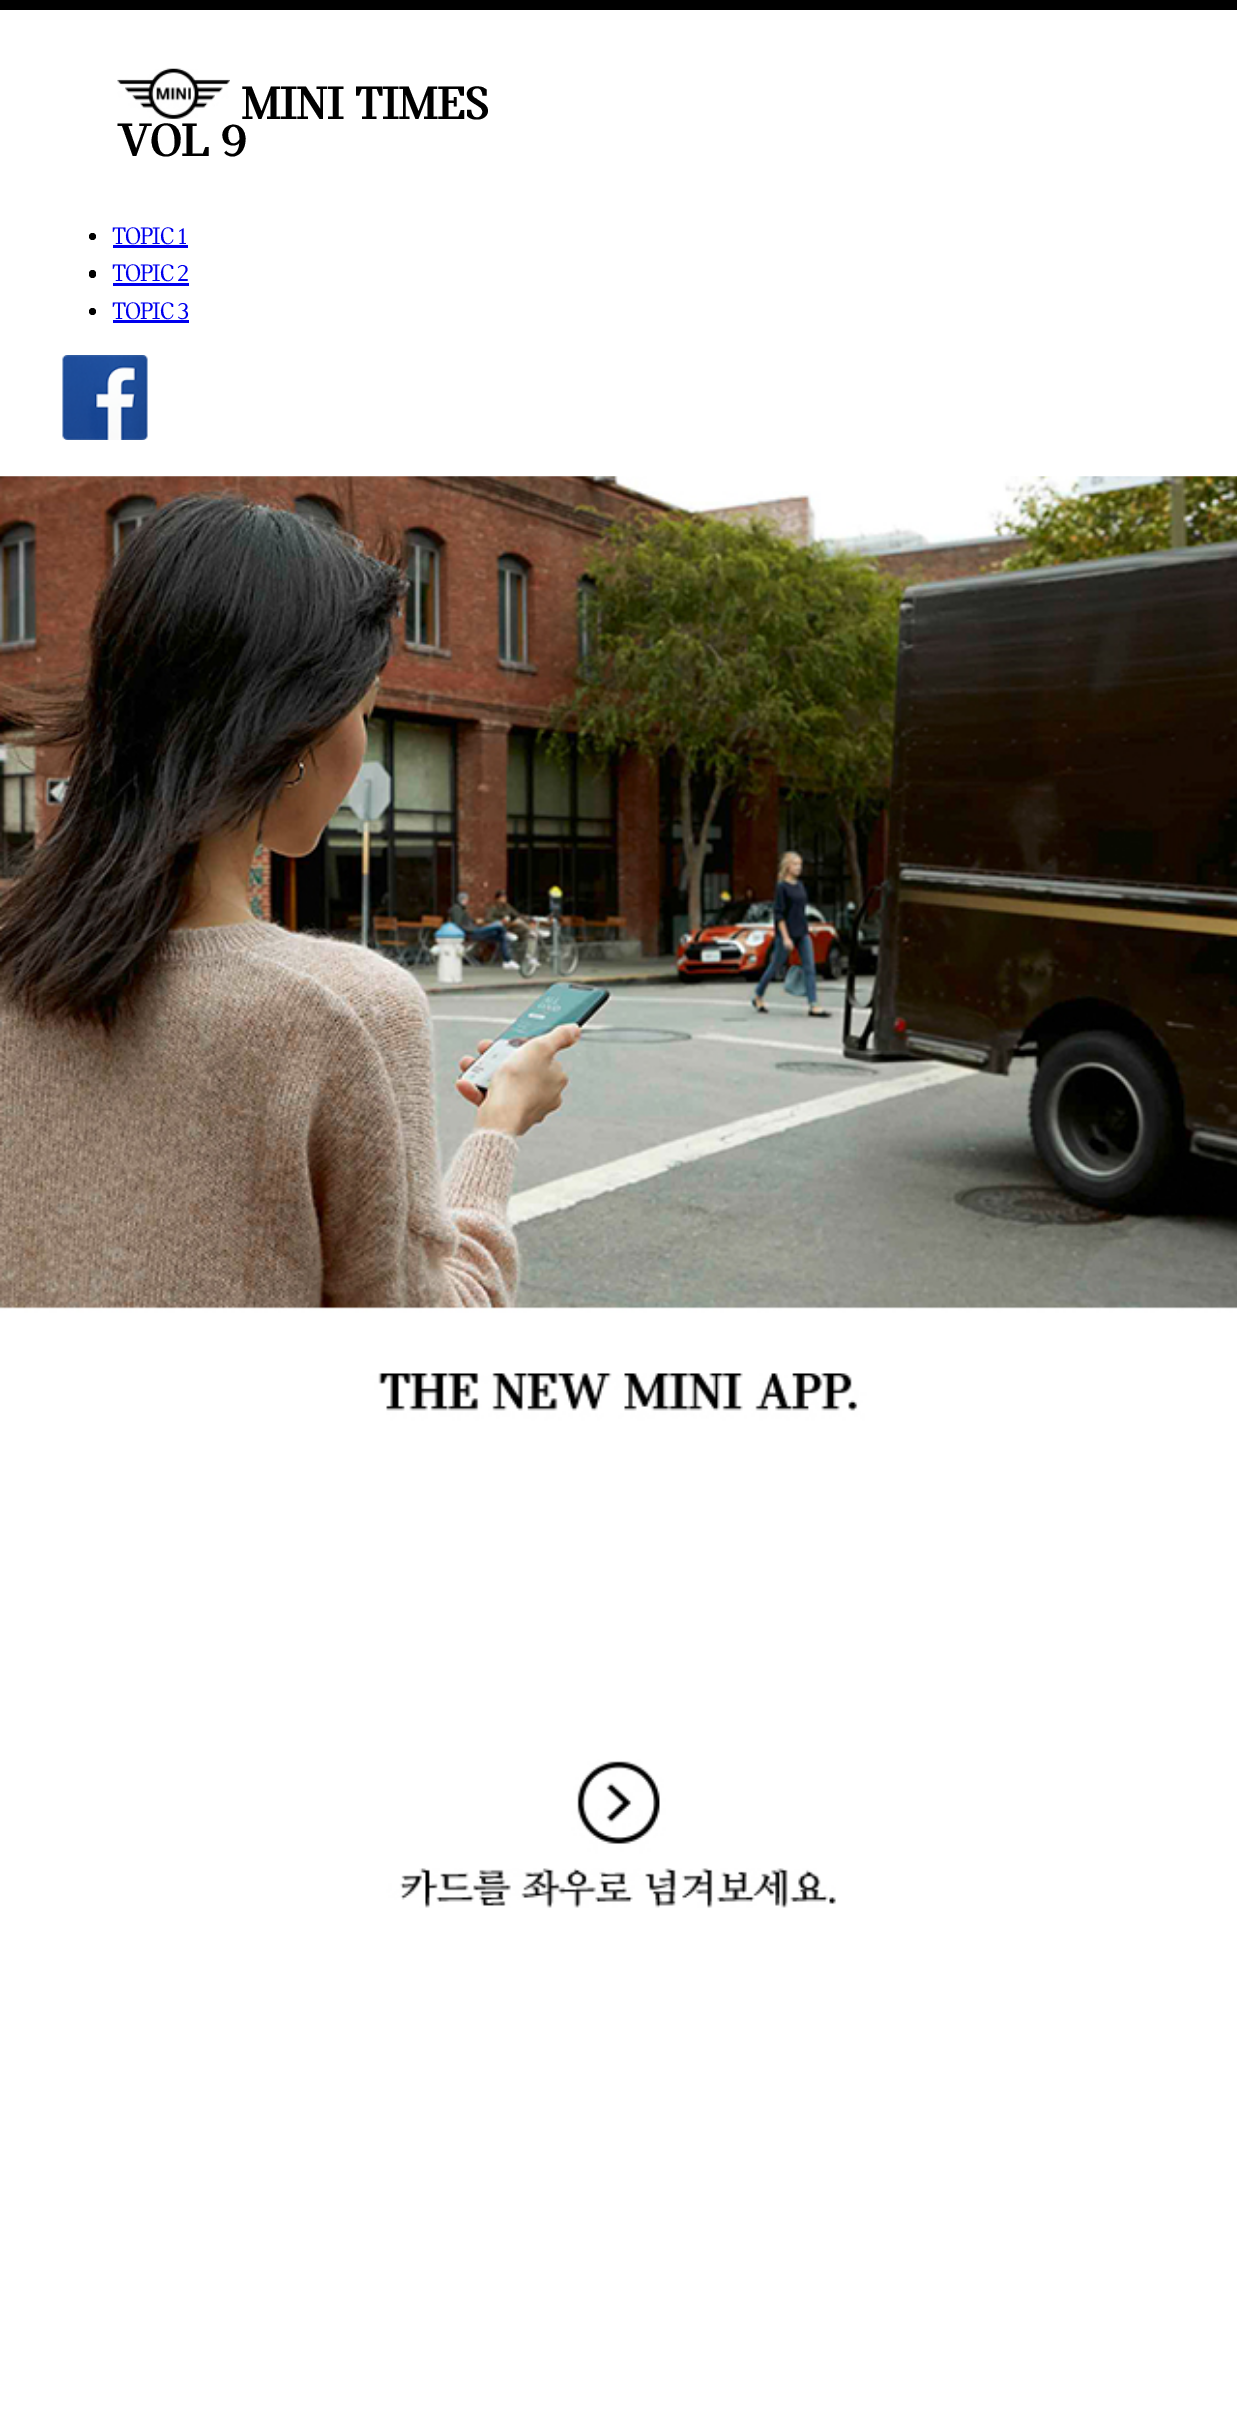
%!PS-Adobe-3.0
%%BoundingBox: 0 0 1237 2431
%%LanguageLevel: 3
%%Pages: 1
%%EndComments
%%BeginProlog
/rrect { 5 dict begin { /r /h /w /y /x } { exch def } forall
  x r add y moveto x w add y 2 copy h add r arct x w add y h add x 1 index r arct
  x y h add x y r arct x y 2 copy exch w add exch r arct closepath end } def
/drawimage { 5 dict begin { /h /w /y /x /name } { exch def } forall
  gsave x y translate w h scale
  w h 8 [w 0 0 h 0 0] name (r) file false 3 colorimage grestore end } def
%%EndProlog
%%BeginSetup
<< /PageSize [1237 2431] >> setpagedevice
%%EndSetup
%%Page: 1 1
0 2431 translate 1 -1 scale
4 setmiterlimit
1 setgray
0 0 1237 2431 rectfill
0 setgray
0 0 1237 10 rectfill
(images/1.raw) 117 68 113 51 drawimage
newpath 92.5 236.5 3.5 0 360 arc closepath fill
0 0 0.933 setrgbcolor
113 245 75 3 rectfill
0 setgray
89 270 7 8 3.5 rrect fill
0 0 0.933 setrgbcolor
113 283 76 3 rectfill
0 setgray
newpath 92.5 311.5 3.5 0 360 arc closepath fill
0 0 0.933 setrgbcolor
113 320 76 3 rectfill
(images/2.raw) 62 355 86 85 drawimage
(images/3.raw) 0 476 1237 1432 drawimage
/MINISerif-Black [50 0 0 -50 0 0] selectfont
0 setgray
241 119 moveto -1.25 0 (MINI TIMES) ashow
118 156 moveto -1.25 0 (VOL 9) ashow
/MINISerif-Regular [25 0 0 -25 0 0] selectfont
0 0 0.933 setrgbcolor
112 244 moveto -1.25 0 (TOPIC 1) ashow
112 281 moveto -1.25 0 (TOPIC 2) ashow
112 319 moveto -1.25 0 (TOPIC 3) ashow
showpage
%%EOF
